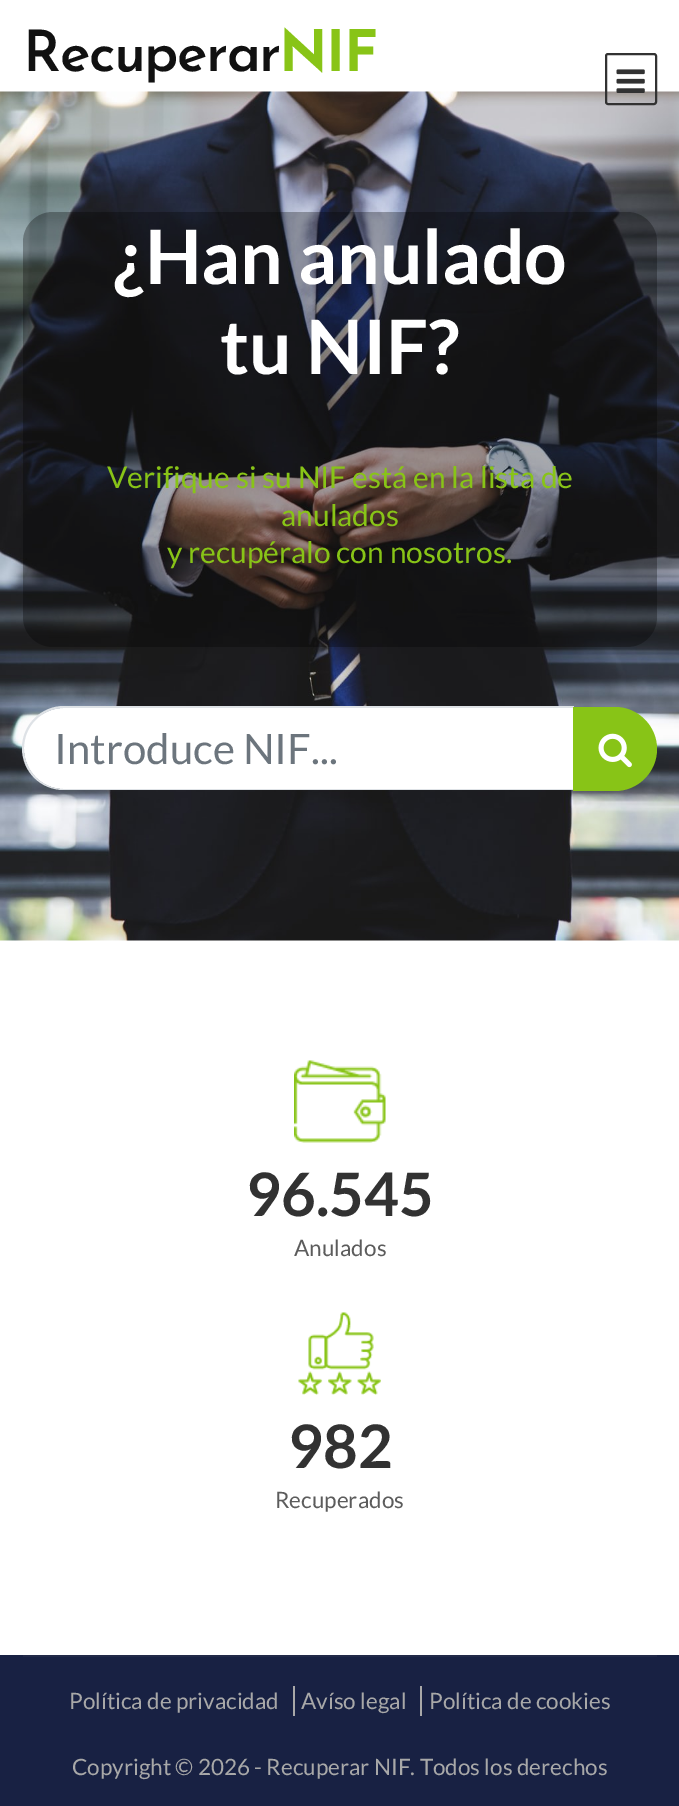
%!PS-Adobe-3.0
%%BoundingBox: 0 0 679 1806
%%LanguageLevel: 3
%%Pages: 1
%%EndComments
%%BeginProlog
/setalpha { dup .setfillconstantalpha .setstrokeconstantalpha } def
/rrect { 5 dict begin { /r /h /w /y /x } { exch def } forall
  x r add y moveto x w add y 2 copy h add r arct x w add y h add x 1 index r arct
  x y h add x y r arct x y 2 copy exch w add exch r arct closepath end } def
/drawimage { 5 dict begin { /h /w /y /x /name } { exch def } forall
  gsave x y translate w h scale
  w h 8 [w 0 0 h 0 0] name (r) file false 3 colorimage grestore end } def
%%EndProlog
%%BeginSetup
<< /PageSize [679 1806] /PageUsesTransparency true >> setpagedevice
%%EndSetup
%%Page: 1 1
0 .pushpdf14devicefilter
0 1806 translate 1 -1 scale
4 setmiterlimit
1 setgray
0 0 679 1806 rectfill
(images/2.raw) 0 91 679 850 drawimage
0.196 setgray
2 setlinewidth
606 54 50 50 2 rrect stroke
(images/1.raw) 616 69 29 24 drawimage
0.3 setalpha
0 setgray
23 212 634 435 30 rrect fill
1 setalpha
1 setgray
newpath 64.5 708 moveto 575 708 lineto 575 789 lineto 64.5 789 lineto 42 789 24 771 24 748.5 curveto 24 726 42 708 64.5 708 curveto closepath fill
0.871 0.886 0.902 setrgbcolor
newpath 64 706 moveto 574 706 lineto 574 790 lineto 64 790 lineto 41 790 22 772 22 748 curveto 22 725 41 706 64 706 curveto closepath 64 708 moveto 574 708 lineto 574 789 lineto 64 789 lineto 42 789 24 771 24 748 curveto 24 726 42 708 64 708 curveto closepath eofill
0.533 0.769 0.09 setrgbcolor
newpath 573 707 moveto 615 707 lineto 638 707 657 726 657 749 curveto 657 772 638 791 615 791 curveto 573 791 lineto closepath fill
(images/3.raw) 598 733 34 35 drawimage
(images/4.raw) 294 1060 92 83 drawimage
(images/5.raw) 298 1312 83 83 drawimage
0.094 0.129 0.263 setrgbcolor
0 1655 679 151 rectfill
0.129 0.161 0.282 setrgbcolor
23 1655 634 2 rectfill
0.659 setgray
293 1686 2 30 rectfill
420 1686 2 30 rectfill
/JosefinSans-SemiBold [57 0 0 -57 0 0] selectfont
0.067 setgray
23 71 moveto -1.5 0 (Recuperar) ashow
/JosefinSans-Bold [57 0 0 -57 0 0] selectfont
0.533 0.769 0.09 setrgbcolor
279 71 moveto -1.5 0 (NIF) ashow
/Lato-Bold [75 0 0 -75 0 0] selectfont
1 setgray
113 284 moveto (¿Han anulado) show
220 374 moveto (tu NIF?) show
/Lato-Regular [30 0 0 -30 0 0] selectfont
0.533 0.769 0.09 setrgbcolor
107 488 moveto (Verifique si su NIF está en la lista de) show
281 526 moveto (anulados) show
167 563 moveto (y recupéralo con nosotros.) show
/Lato-Regular [42 0 0 -42 0 0] selectfont
0.424 0.459 0.49 setrgbcolor
54 764 moveto (Introduce NIF...) show
/Lato-Bold [60 0 0 -60 0 0] selectfont
0.196 setgray
246 1216 moveto (96.545) show
/Lato-Regular [22.5 0 0 -22.5 0 0] selectfont
0.361 setgray
294 1256 moveto (Anulados) show
/Lato-Bold [60 0 0 -60 0 0] selectfont
0.196 setgray
288 1468 moveto (982) show
/Lato-Regular [22.5 0 0 -22.5 0 0] selectfont
0.361 setgray
275 1508 moveto (Recuperados) show
0.659 setgray
69 1709 moveto (Política de privacidad) show
301 1709 moveto (Avíso legal) show
429 1709 moveto (Política de cookies) show
72 1775 moveto (Copyright © 2026 - Recuperar NIF. Todos los derechos) show
.poppdf14devicefilter showpage
%%EOF
